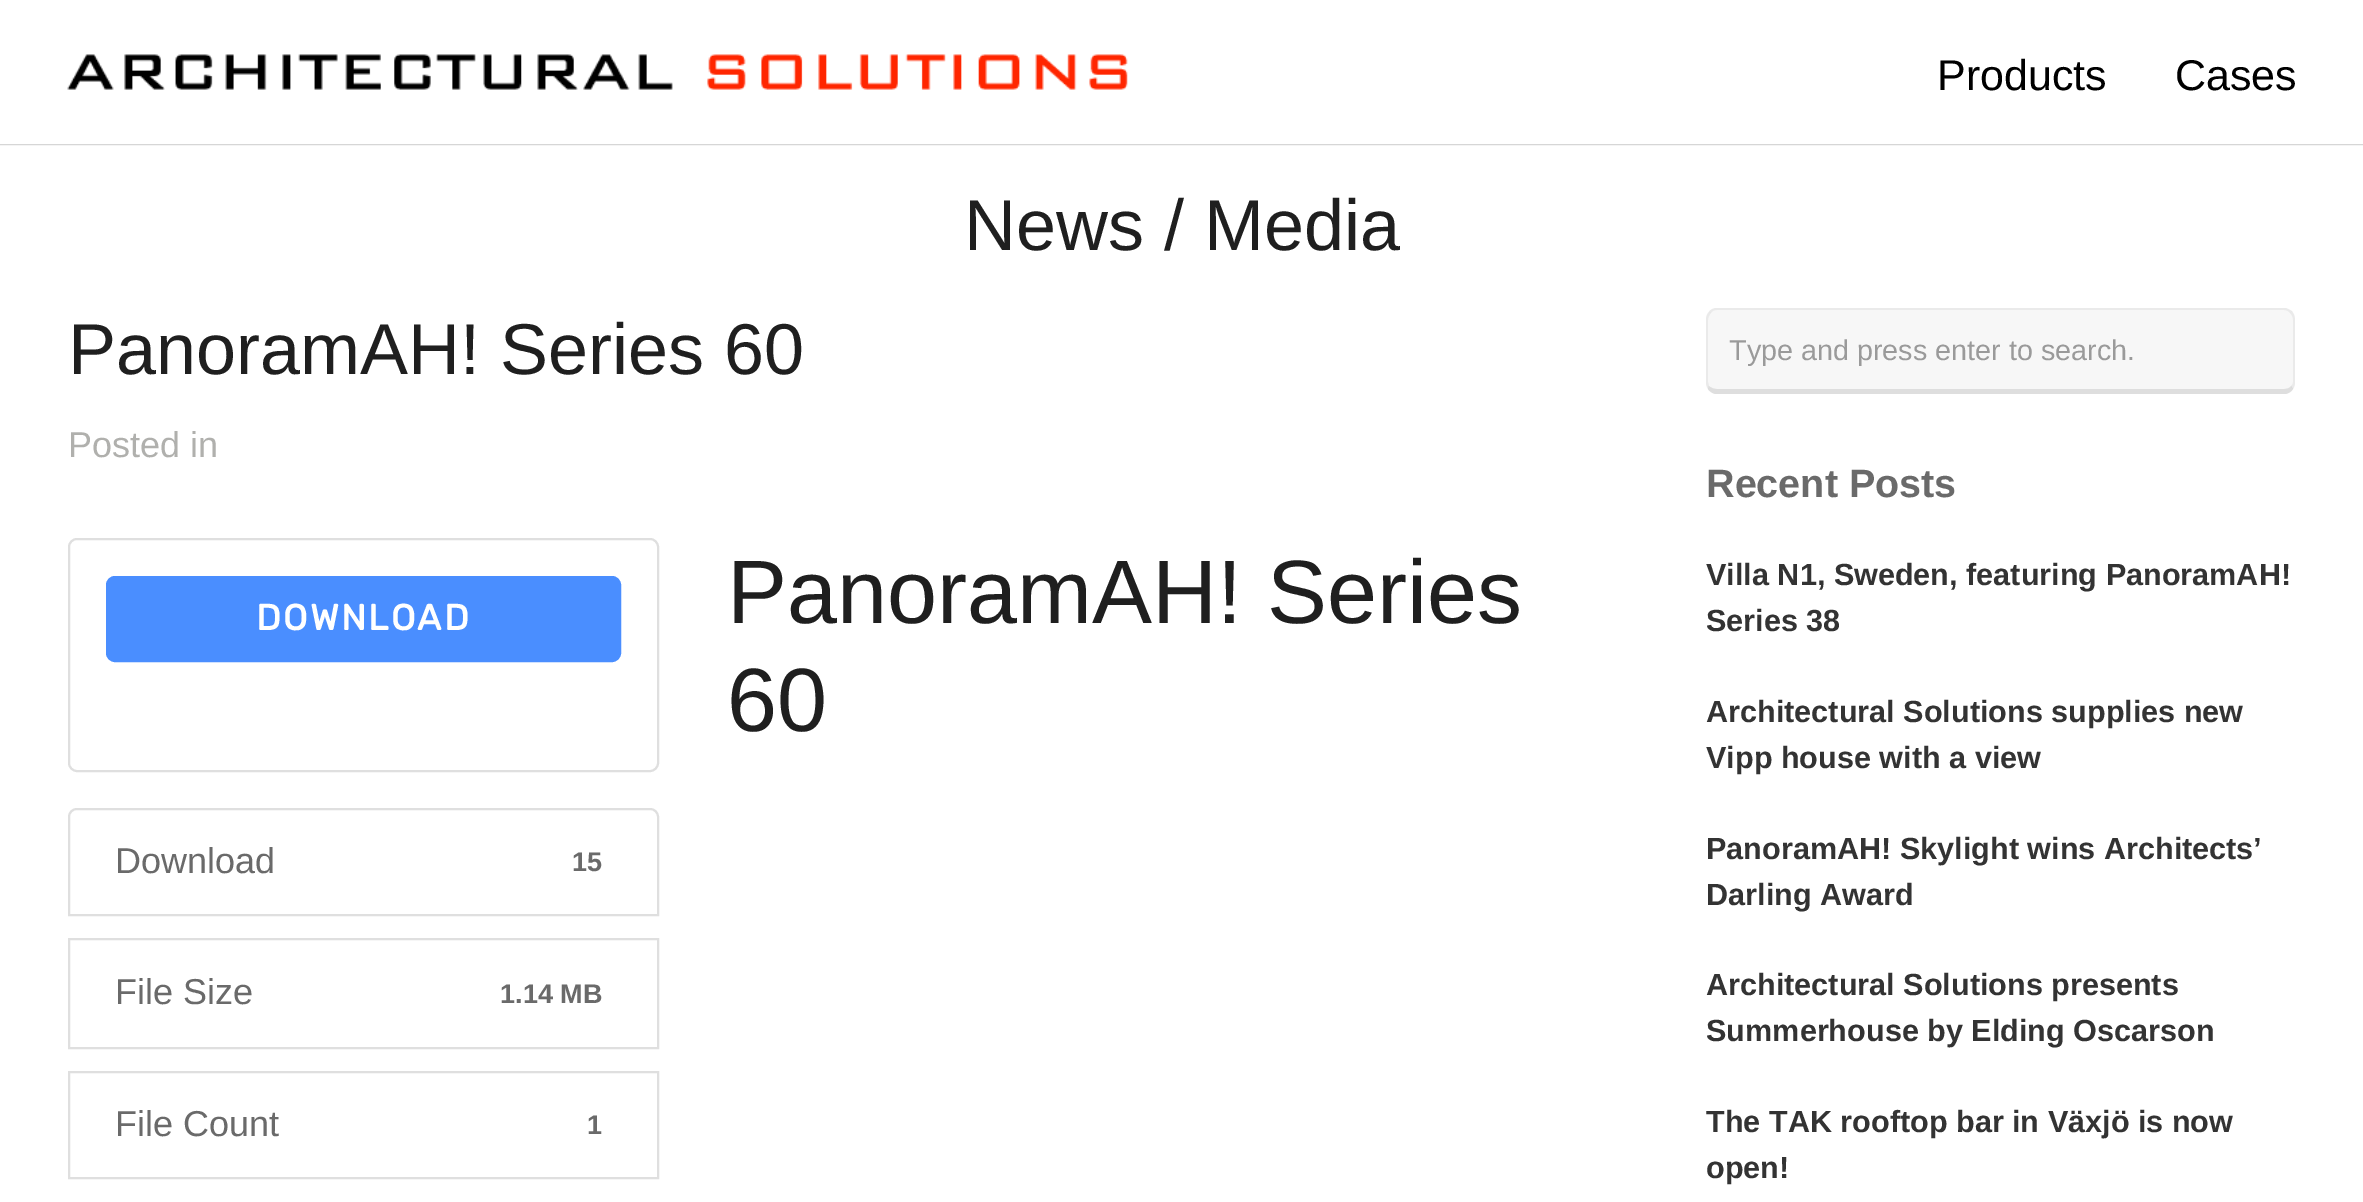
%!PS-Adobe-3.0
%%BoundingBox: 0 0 2363 1202
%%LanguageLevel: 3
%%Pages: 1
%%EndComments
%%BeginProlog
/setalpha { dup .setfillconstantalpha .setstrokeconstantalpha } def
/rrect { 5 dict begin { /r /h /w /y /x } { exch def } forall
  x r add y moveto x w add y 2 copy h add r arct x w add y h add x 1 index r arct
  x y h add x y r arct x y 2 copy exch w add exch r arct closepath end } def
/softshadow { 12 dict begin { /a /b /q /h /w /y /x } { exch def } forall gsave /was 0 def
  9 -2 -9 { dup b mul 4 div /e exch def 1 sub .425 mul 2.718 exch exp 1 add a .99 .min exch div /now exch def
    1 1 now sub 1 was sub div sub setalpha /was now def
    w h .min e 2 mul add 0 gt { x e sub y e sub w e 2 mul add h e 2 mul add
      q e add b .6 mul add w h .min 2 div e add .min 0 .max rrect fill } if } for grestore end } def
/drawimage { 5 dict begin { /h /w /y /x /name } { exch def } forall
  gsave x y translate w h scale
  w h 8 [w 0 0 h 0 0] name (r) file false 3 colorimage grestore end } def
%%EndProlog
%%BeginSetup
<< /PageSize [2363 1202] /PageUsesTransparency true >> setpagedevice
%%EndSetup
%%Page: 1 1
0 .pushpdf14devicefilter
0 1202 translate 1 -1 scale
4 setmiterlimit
1 setgray
0 0 2363 1202 rectfill
gsave
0 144 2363 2 rectclip
0 setgray
0 0 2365 144 0 1 0.5 softshadow
grestore
(images/1.raw) 67 54 1061 36 drawimage
0.875 setgray
2 setlinewidth
69 539 589 232 8 rrect stroke
0.29 0.557 1 setrgbcolor
107 577 513 84 8 rrect gsave fill grestore
stroke
0.875 setgray
newpath 77 809 moveto 650 809 lineto 654.5 809 658 812.5 658 817 curveto 658 915 lineto 69 915 lineto 69 817 lineto 69 812.5 72.5 809 77 809 curveto closepath stroke
69 939 589 109 rectstroke
69 1072 589 106 rectstroke
0.969 setgray
1706 308 589 86 11 rrect fill
0.05 setalpha
0 setgray
newpath 1717 310 moveto 1714 310 1712 311 1711 313 curveto 1709 312 lineto 1710 310 1712 309 1715 308 curveto 2286 308 lineto 2288 309 2290 310 2292 311 curveto 2290 313 lineto 2289 311 2286 310 2284 310 curveto closepath fill
newpath 2295 382 moveto 2295 320 lineto 2295 317 2294 314 2292 311 curveto 2290 313 lineto 2292 315 2293 317 2293 320 curveto 2293 382 lineto 2293 384 2292 385 2291 386 curveto 2293 389 lineto 2294 387 2295 385 2295 382 curveto closepath fill
0.1 setalpha
newpath 1715 394 moveto 1712 393 1709 391 1708 389 curveto 1709 386 lineto 1711 388 1714 389 1717 389 curveto 2284 389 lineto 2287 389 2290 388 2291 386 curveto 2293 389 lineto 2291 392 2289 393 2286 394 curveto closepath fill
0.05 setalpha
newpath 1708 389 moveto 1707 387 1706 385 1706 382 curveto 1706 320 lineto 1706 317 1707 314 1709 312 curveto 1711 313 lineto 1709 315 1708 318 1708 320 curveto 1708 382 lineto 1708 383 1709 385 1709 386 curveto closepath fill
/LiberationSans-Regular [43 0 0 -43 0 0] selectfont
1 setalpha
1937 90 moveto (Products) show
2175 90 moveto (Cases) show
/LiberationSans-Regular [72 0 0 -72 0 0] selectfont
0.122 setgray
964 250 moveto (News / Media) show
68 374 moveto (PanoramAH! Series 60) show
/LiberationSans-Regular [36 0 0 -36 0 0] selectfont
0.69 0.69 0.678 setrgbcolor
68 457 moveto (Posted in) show
/Rubik-Bold [36 0 0 -36 0 0] selectfont
1 setgray
256 630 moveto 2.25 0 (DOWNLOAD) ashow
/LiberationSans-Regular [36 0 0 -36 0 0] selectfont
0.416 setgray
115 873 moveto (Download) show
/LiberationSans-Bold [27 0 0 -27 0 0] selectfont
572 871 moveto (15) show
/LiberationSans-Regular [36 0 0 -36 0 0] selectfont
115 1004 moveto (File Size) show
/LiberationSans-Bold [27 0 0 -27 0 0] selectfont
500 1003 moveto (1.14 MB) show
/LiberationSans-Regular [36 0 0 -36 0 0] selectfont
115 1136 moveto (File Count) show
/LiberationSans-Bold [27 0 0 -27 0 0] selectfont
587 1134 moveto (1) show
/LiberationSans-Regular [90 0 0 -90 0 0] selectfont
0.122 setgray
727 623 moveto (PanoramAH! Series) show
727 731 moveto (60) show
/LiberationSans-Regular [28.75 0 0 -28.75 0 0] selectfont
0.604 setgray
1729 360 moveto (Type and press enter to search.) show
/LiberationSans-Bold [39.5 0 0 -39.5 0 0] selectfont
0.416 setgray
1706 497 moveto (Recent Posts) show
/LiberationSans-Bold [30.6 0 0 -30.6 0 0] selectfont
0.2 setgray
1706 585 moveto (Villa N1, Sweden, featuring PanoramAH!) show
1706 631 moveto (Series 38) show
1706 722 moveto (Architectural Solutions supplies new) show
1706 768 moveto (Vipp house with a view) show
1706 859 moveto (PanoramAH! Skylight wins Architects’) show
1706 905 moveto (Darling Award) show
1706 995 moveto (Architectural Solutions presents) show
1706 1041 moveto (Summerhouse by Elding Oscarson) show
1706 1132 moveto (The TAK rooftop bar in Växjö is now) show
1706 1178 moveto (open!) show
.poppdf14devicefilter showpage
%%EOF
